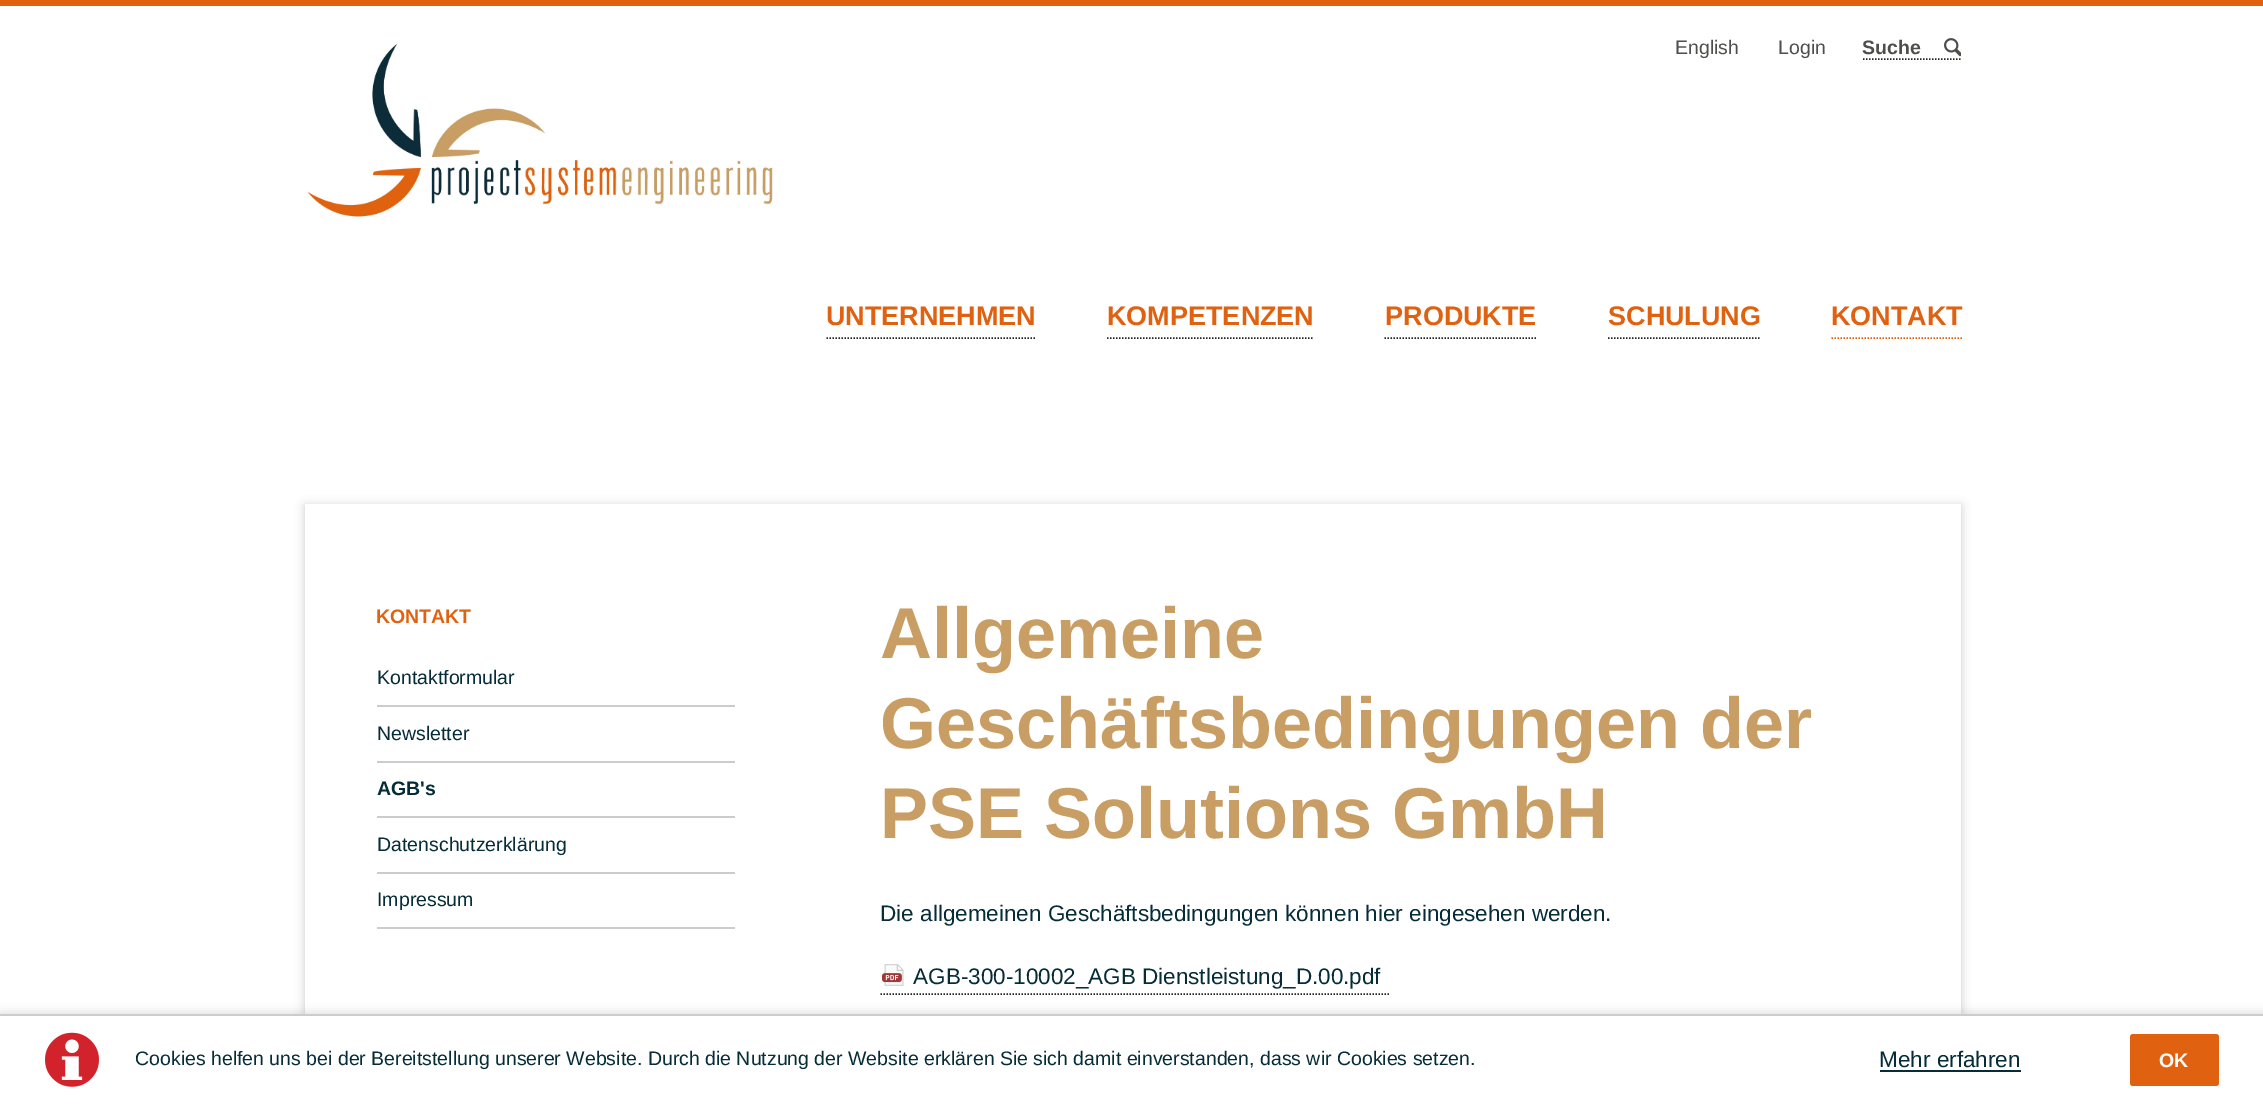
%!PS-Adobe-3.0
%%BoundingBox: 0 0 2263 1104
%%LanguageLevel: 3
%%Pages: 1
%%EndComments
%%BeginProlog
/setalpha { dup .setfillconstantalpha .setstrokeconstantalpha } def
/rrect { 5 dict begin { /r /h /w /y /x } { exch def } forall
  x r add y moveto x w add y 2 copy h add r arct x w add y h add x 1 index r arct
  x y h add x y r arct x y 2 copy exch w add exch r arct closepath end } def
/softshadow { 12 dict begin { /a /b /q /h /w /y /x } { exch def } forall gsave /was 0 def
  9 -2 -9 { dup b mul 4 div /e exch def 1 sub .425 mul 2.718 exch exp 1 add a .99 .min exch div /now exch def
    1 1 now sub 1 was sub div sub setalpha /was now def
    w h .min e 2 mul add 0 gt { x e sub y e sub w e 2 mul add h e 2 mul add
      q e add b .6 mul add w h .min 2 div e add .min 0 .max rrect fill } if } for grestore end } def
/drawimage { 5 dict begin { /h /w /y /x /name } { exch def } forall
  gsave x y translate w h scale
  w h 8 [w 0 0 h 0 0] name (r) file false 3 colorimage grestore end } def
%%EndProlog
%%BeginSetup
<< /PageSize [2263 1104] /PageUsesTransparency true >> setpagedevice
%%EndSetup
%%Page: 1 1
0 .pushpdf14devicefilter
0 1104 translate 1 -1 scale
4 setmiterlimit
1 setgray
0 0 2263 1104 rectfill
0.878 0.384 0.067 setrgbcolor
0 0 2263 6 rectfill
(images/1.raw) 307 43 466 174 drawimage
0.137 0.133 0.133 setrgbcolor
1.5 setlinewidth
[1.5 1.5] 0 setdash
newpath 1863 59 moveto 1960.5 59 lineto stroke
(images/2.raw) 1944 38 17 19 drawimage
newpath 826.5 338 moveto 1036.5 338 lineto stroke
newpath 1107 338 moveto 1314 338 lineto stroke
newpath 1384.5 338 moveto 1537.5 338 lineto stroke
newpath 1608 338 moveto 1761 338 lineto stroke
0.878 0.384 0.067 setrgbcolor
newpath 1831.5 338 moveto 1963.5 338 lineto stroke
gsave
newpath 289 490 moveto 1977 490 lineto 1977 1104 lineto 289 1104 lineto closepath 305 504 moveto 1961 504 lineto 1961 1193 lineto 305 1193 lineto closepath eoclip newpath
0 setgray
305 506 1656 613 0 5 0.2 softshadow
grestore
0.5 setalpha
1 setgray
1960 504 1 510 rectfill
1 setalpha
0.8 0.8 0.804 setrgbcolor
377 705 358 2 rectfill
377 761 358 2 rectfill
377 816 358 2 rectfill
377 872 358 2 rectfill
377 927 358 2 rectfill
(images/3.raw) 882 964 22 22 drawimage
0.137 0.133 0.133 setrgbcolor
newpath 880.5 994 moveto 1389 994 lineto stroke
0 setgray
0 1011 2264 90 0 4 0.1 softshadow
1 setgray
0 1016 2263 88 rectfill
0.8 0.8 0.804 setrgbcolor
0 1014 2263 2 rectfill
(images/4.raw) 45 1032 54 55 drawimage
0.02 0.173 0.22 setrgbcolor
1880 1070 141 2 rectfill
0.878 0.384 0.067 setrgbcolor
2130 1034 89 52 3 rrect fill
/LiberationSans-Regular [19.5 0 0 -19.5 0 0] selectfont
0.314 0.306 0.294 setrgbcolor
1675 54 moveto (English) show
1778 54 moveto (Login) show
/LiberationSans-Bold [19.5 0 0 -19.5 0 0] selectfont
1862 54 moveto (Suche) show
/LiberationSans-Bold [27 0 0 -27 0 0] selectfont
0.878 0.384 0.067 setrgbcolor
826 325 moveto (UNTERNEHMEN) show
1107 325 moveto (KOMPETENZEN) show
1385 325 moveto (PRODUKTE) show
1608 325 moveto (SCHULUNG) show
1831 325 moveto (KONTAKT) show
/LiberationSans-Bold [19.5 0 0 -19.5 0 0] selectfont
376 623 moveto (KONTAKT) show
/LiberationSans-Regular [19.5 0 0 -19.5 0 0] selectfont
0.02 0.173 0.22 setrgbcolor
377 684 moveto (Kontaktformular) show
377 740 moveto (Newsletter) show
/LiberationSans-Bold [19.5 0 0 -19.5 0 0] selectfont
377 795 moveto (AGB's) show
/LiberationSans-Regular [19.5 0 0 -19.5 0 0] selectfont
377 851 moveto (Datenschutzerklärung) show
377 906 moveto (Impressum) show
/LiberationSans-Bold [72 0 0 -72 0 0] selectfont
0.788 0.62 0.396 setrgbcolor
880 658 moveto (Allgemeine) show
880 748 moveto (Geschäftsbedingungen der) show
880 838 moveto (PSE Solutions GmbH) show
/LiberationSans-Regular [22.5 0 0 -22.5 0 0] selectfont
0.02 0.173 0.22 setrgbcolor
880 921 moveto (Die allgemeinen Geschäftsbedingungen können hier eingesehen werden.) show
913 984 moveto (AGB-300-10002_AGB Dienstleistung_D.00.pdf) show
/LiberationSans-Regular [19.5 0 0 -19.5 0 0] selectfont
135 1065 moveto (Cookies helfen uns bei der Bereitstellung unserer Website. Durch die Nutzung der Website erklären Sie sich damit einverstanden, dass wir Cookies setzen.) show
/LiberationSans-Regular [22.5 0 0 -22.5 0 0] selectfont
1879 1067 moveto (Mehr erfahren) show
/LiberationSans-Bold [19.5 0 0 -19.5 0 0] selectfont
1 setgray
2159 1067 moveto (OK) show
.poppdf14devicefilter showpage
%%EOF
